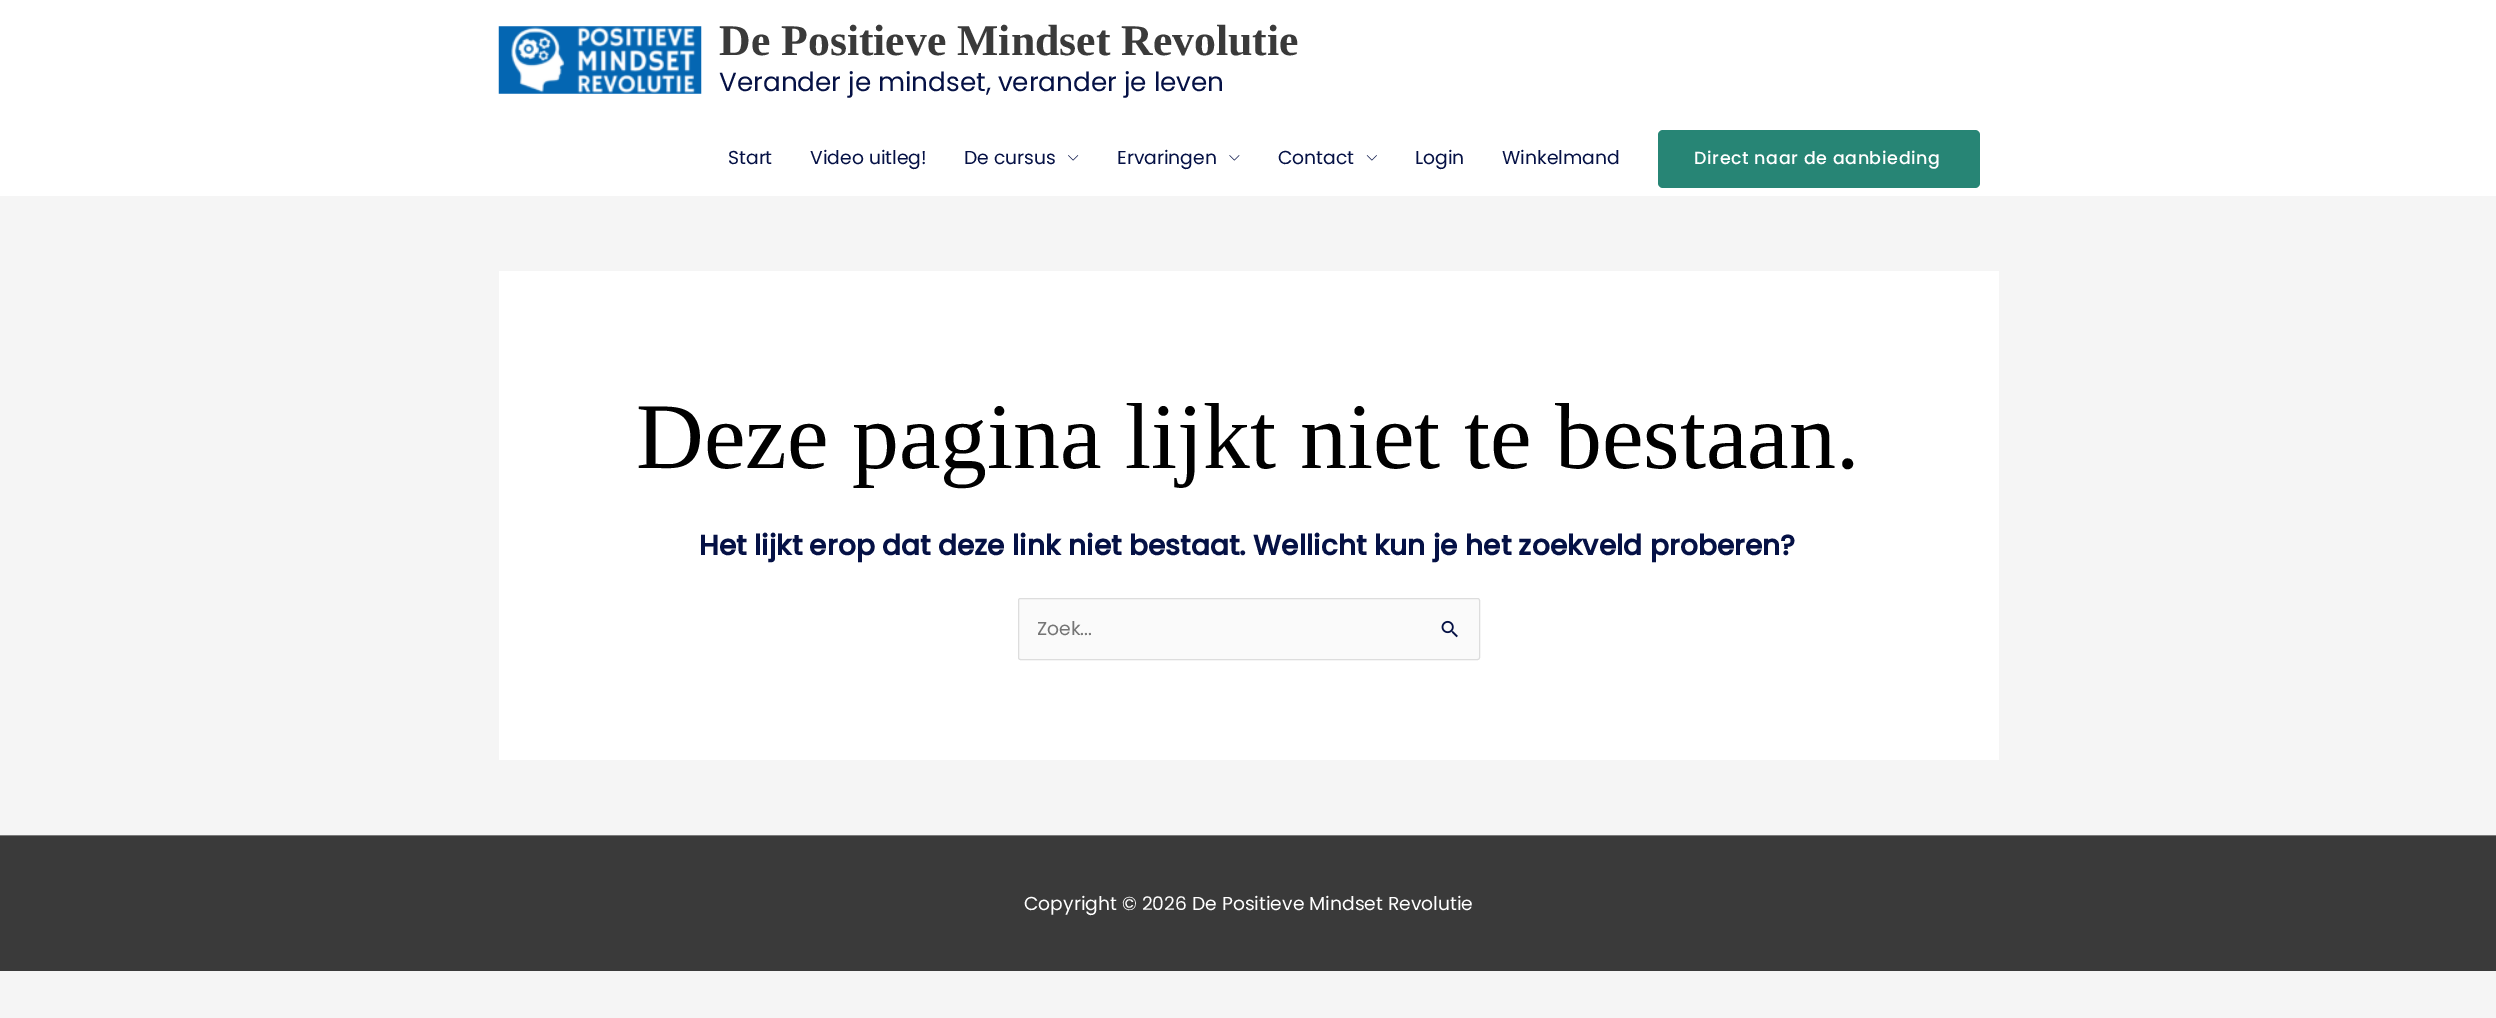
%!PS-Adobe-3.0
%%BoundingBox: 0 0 2496 1018
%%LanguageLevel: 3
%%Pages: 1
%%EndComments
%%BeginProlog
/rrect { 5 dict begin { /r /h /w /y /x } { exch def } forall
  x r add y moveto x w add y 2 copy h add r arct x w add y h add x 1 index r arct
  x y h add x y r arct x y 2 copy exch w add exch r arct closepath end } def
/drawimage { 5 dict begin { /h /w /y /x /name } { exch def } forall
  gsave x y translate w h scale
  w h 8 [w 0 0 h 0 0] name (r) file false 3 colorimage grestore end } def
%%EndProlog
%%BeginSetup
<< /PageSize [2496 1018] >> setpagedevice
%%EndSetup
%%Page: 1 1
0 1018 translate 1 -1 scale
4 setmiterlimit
0.961 setgray
0 0 2496 1018 rectfill
1 setgray
0 0 2496 196 rectfill
(images/1.raw) 498 26 204 68 drawimage
(images/2.raw) 1068 155 11 6 drawimage
(images/3.raw) 1229 155 11 6 drawimage
(images/4.raw) 1366 155 11 6 drawimage
0.153 0.522 0.459 setrgbcolor
1658 130 322 58 5 rrect fill
1 setgray
499 271 1500 489 rectfill
0.98 setgray
1018.5 598.5 461 61 2 rrect gsave fill grestore
0.867 setgray
stroke
(images/5.raw) 1441 620 17 18 drawimage
0.478 setgray
0 835 2496 1 rectfill
0.227 setgray
0 836 2496 135 rectfill
/LiberationSerif-Bold [43.75 0 0 -43.75 0 0] selectfont
719 55 moveto (De Positieve Mindset Revolutie) show
/Poppins-Regular [26.25 0 0 -26.25 0 0] selectfont
0.02 0.067 0.271 setrgbcolor
719 91 moveto (Verander je mindset, verander je leven) show
/Poppins-Regular [18.75 0 0 -18.75 0 0] selectfont
728 164 moveto (Start) show
810 164 moveto (Video uitleg!) show
964 164 moveto (De cursus) show
1117 164 moveto (Ervaringen) show
1278 164 moveto (Contact) show
1415 164 moveto (Login) show
1502 164 moveto (Winkelmand) show
/Poppins-Medium [17.5 0 0 -17.5 0 0] selectfont
1 setgray
1694 164 moveto 0.6 0 (Direct naar de aanbieding) ashow
/LiberationSerif-Regular [93.75 0 0 -93.75 0 0] selectfont
0 setgray
636 468 moveto (Deze pagina lijkt niet te bestaan.) show
/Poppins-Bold [28.1 0 0 -28.1 0 0] selectfont
0.02 0.067 0.271 setrgbcolor
699 555 moveto (Het lijkt erop dat deze link niet bestaat. Wellicht kun je het zoekveld proberen?) show
gsave
1038 614 380 29 rectclip
/Poppins-Regular [18.75 0 0 -18.75 0 0] selectfont
0.459 setgray
1037 635 moveto (Zoek...) show
grestore
/Poppins-Regular [18.75 0 0 -18.75 0 0] selectfont
1 setgray
1024 910 moveto (Copyright © 2026 De Positieve Mindset Revolutie) show
showpage
%%EOF
